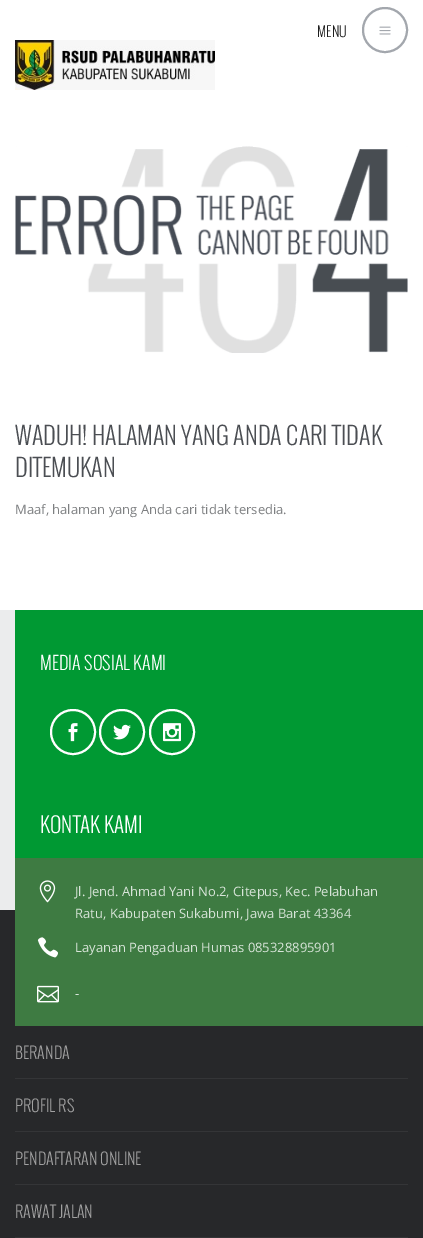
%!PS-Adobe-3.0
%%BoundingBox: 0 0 423 1238
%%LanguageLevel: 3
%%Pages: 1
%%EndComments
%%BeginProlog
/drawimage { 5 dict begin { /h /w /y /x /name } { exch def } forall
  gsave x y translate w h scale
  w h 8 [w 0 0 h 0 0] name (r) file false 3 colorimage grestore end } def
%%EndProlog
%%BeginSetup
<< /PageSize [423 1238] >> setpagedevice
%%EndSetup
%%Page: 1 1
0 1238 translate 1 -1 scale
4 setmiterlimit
1 setgray
0 0 423 1238 rectfill
0.639 0.655 0.678 setrgbcolor
2 setlinewidth
newpath 385 30 22 0 360 arc closepath stroke
(images/1.raw) 379 26 12 9 drawimage
(images/2.raw) 15 40 200 50 drawimage
(images/3.raw) 15 146 393 207 drawimage
0.922 0.925 0.929 setrgbcolor
0 610 15 300 rectfill
0 0.6 0.2 setrgbcolor
15 610 408 248 rectfill
1 setgray
newpath 73 732 22 0 360 arc closepath stroke
(images/4.raw) 68 723 10 19 drawimage
newpath 122 732 22 0 360 arc closepath stroke
(images/5.raw) 113 724 18 16 drawimage
newpath 172 732 22 0 360 arc closepath stroke
(images/6.raw) 163 723 18 19 drawimage
0.153 0.157 0.165 setrgbcolor
0 910 423 328 rectfill
0.243 0.482 0.259 setrgbcolor
15 858 408 168 rectfill
(images/7.raw) 39 880 17 23 drawimage
(images/8.raw) 37 937 21 21 drawimage
(images/9.raw) 37 985 22 18 drawimage
0.204 0.208 0.216 setrgbcolor
15 1078 393 1 rectfill
15 1131 393 1 rectfill
15 1184 393 1 rectfill
15 1237 393 1 rectfill
/Oswald-Light [14 0 0 -14 0 0] selectfont
0.118 setgray
317 37 moveto (MENU) show
/Oswald-Light [24 0 0 -24 0 0] selectfont
0.294 0.306 0.325 setrgbcolor
15 445 moveto (WADUH! HALAMAN YANG ANDA CARI TIDAK) show
15 477 moveto (DITEMUKAN) show
/OpenSans-Regular [13 0 0 -13 0 0] selectfont
0.494 0.502 0.51 setrgbcolor
15 514 moveto (Maaf, halaman yang Anda cari tidak tersedia.) show
/Oswald-Light [18 0 0 -18 0 0] selectfont
1 setgray
40 670 moveto (MEDIA SOSIAL KAMI) show
/Oswald-Light [21 0 0 -21 0 0] selectfont
40 833 moveto (KONTAK KAMI) show
/OpenSans-Regular [13 0 0 -13 0 0] selectfont
0.847 0.898 0.851 setrgbcolor
75 896 moveto (Jl. Jend. Ahmad Yani No.2, Citepus, Kec. Pelabuhan) show
75 918 moveto (Ratu, Kabupaten Sukabumi, Jawa Barat 43364) show
75 952 moveto (Layanan Pengaduan Humas 085328895901) show
75 998 moveto (-) show
/Oswald-Light [16 0 0 -16 0 0] selectfont
0.631 setgray
15 1059 moveto (BERANDA) show
15 1112 moveto (PROFIL RS) show
15 1165 moveto (PENDAFTARAN ONLINE) show
15 1218 moveto (RAWAT JALAN) show
showpage
%%EOF
